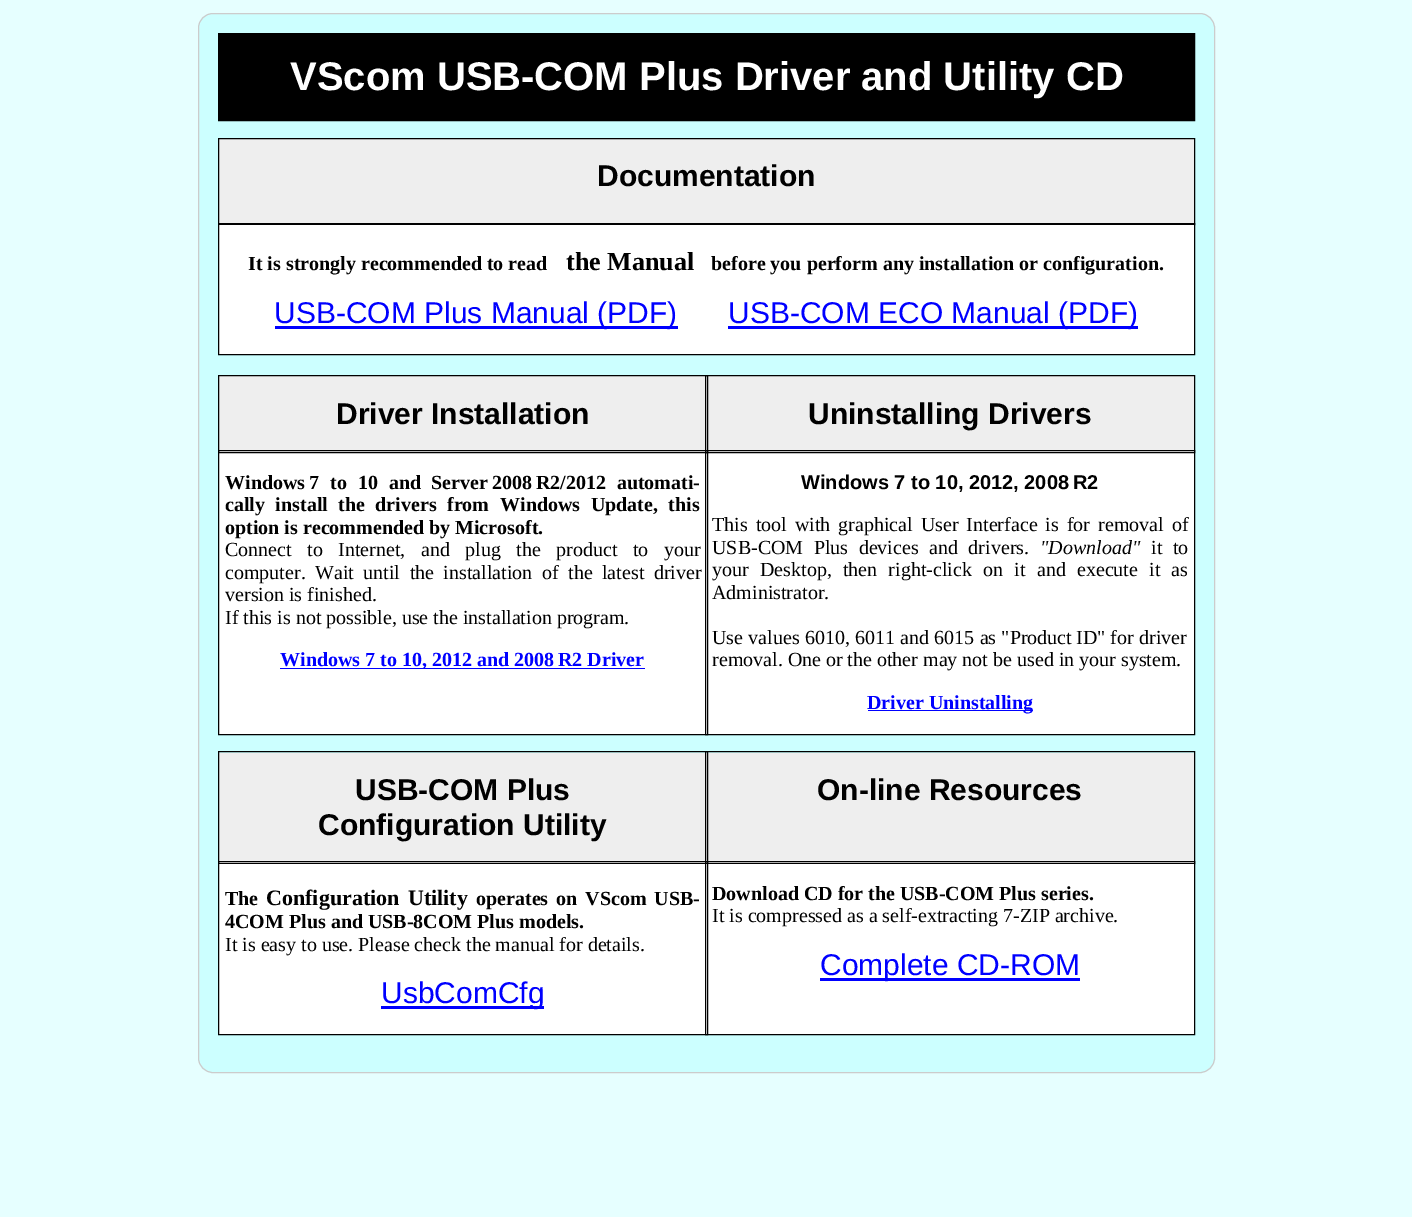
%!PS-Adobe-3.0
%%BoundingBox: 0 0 1412 1217
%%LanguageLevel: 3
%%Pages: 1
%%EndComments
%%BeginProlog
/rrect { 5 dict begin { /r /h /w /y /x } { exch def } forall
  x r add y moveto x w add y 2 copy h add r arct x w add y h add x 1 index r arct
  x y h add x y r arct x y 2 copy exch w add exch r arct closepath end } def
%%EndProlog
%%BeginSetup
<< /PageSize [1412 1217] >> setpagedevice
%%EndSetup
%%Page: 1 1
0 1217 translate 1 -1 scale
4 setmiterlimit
0.902 1 1 setrgbcolor
0 0 1412 1217 rectfill
0.8 1 1 setrgbcolor
198.5 13.5 1016 1059 14.5 rrect gsave fill grestore
0.8 setgray
stroke
0 setgray
219 34 975 86 rectfill
218.5 33.5 976 87 rectstroke
0.933 setgray
219 139 975 84 rectfill
0 setgray
218.5 138.5 976 86 rectstroke
1 setgray
219 225 975 129 rectfill
0 0 1 setrgbcolor
275 326 403 3 rectfill
728 326 410 3 rectfill
0 setgray
218.5 223.5 976 131 rectstroke
0.933 setgray
219 376 975 74 rectfill
1 setgray
219 451 975 283 rectfill
0 setgray
218.5 375.5 489 77 rectstroke
705.5 375.5 489 77 rectstroke
0 0 1 setrgbcolor
280 668 365 1 rectfill
0 setgray
218.5 450.5 489 284 rectstroke
0 0 1 setrgbcolor
868 710 165 1 rectfill
0 setgray
705.5 450.5 489 284 rectstroke
0.933 setgray
219 753 975 110 rectfill
0 setgray
218.5 751.5 489 112 rectstroke
705.5 751.5 489 112 rectstroke
1 setgray
219 864 975 170 rectfill
0 0 1 setrgbcolor
381 1006 163 3 rectfill
0 setgray
218.5 861.5 489 173 rectstroke
0 0 1 setrgbcolor
820 978 260 3 rectfill
0 setgray
705.5 861.5 489 173 rectstroke
/LiberationSans-Bold [40 0 0 -40 0 0] selectfont
1 setgray
290 90 moveto (VScom USB-COM Plus Driver and Utility CD) show
/LiberationSans-Bold [30 0 0 -30 0 0] selectfont
0 setgray
597 186 moveto (Documentation) show
/LiberationSerif-Bold [20 0 0 -20 0 0] selectfont
248 270 moveto (It is strongly recommended to read) show
/LiberationSerif-Bold [26 0 0 -26 0 0] selectfont
566 270 moveto (the Manual) show
/LiberationSerif-Bold [20 0 0 -20 0 0] selectfont
711 270 moveto (before you perform any installation or configuration.) show
/LiberationSans-Regular [30 0 0 -30 0 0] selectfont
0 0 1 setrgbcolor
274 323 moveto (USB-COM Plus Manual \(PDF\)) show
728 323 moveto (USB-COM ECO Manual \(PDF\)) show
/LiberationSans-Bold [30 0 0 -30 0 0] selectfont
0 setgray
336 424 moveto (Driver Installation) show
808 424 moveto (Uninstalling Drivers) show
/LiberationSerif-Bold [20 0 0 -20 0 0] selectfont
225 489 moveto 6 0 32 (Windows 7 to 10 and) widthshow
431 489 moveto 6 0 32 (Server 2008 R2/2012 automati-) widthshow
225 511 moveto 5.5 0 32 (cally install the drivers from) widthshow
500 511 moveto 5.5 0 32 (Windows Update, this) widthshow
225 534 moveto (option is recommended by Microsoft.) show
/LiberationSerif-Regular [20 0 0 -20 0 0] selectfont
225 556 moveto 10.5 0 32 (Connect to Internet, and plug the product to your) widthshow
225 579 moveto (computer.) show
315 579 moveto 4.5 0 32 (Wait until the installation of the latest driver) widthshow
225 601 moveto (version is finished.) show
225 624 moveto (If this is not possible, use the installation program.) show
/LiberationSerif-Bold [20 0 0 -20 0 0] selectfont
0 0 1 setrgbcolor
280 666 moveto (Windows 7 to 10, 2012 and 2008 R2 Driver) show
/LiberationSans-Bold [20 0 0 -20 0 0] selectfont
0 setgray
801 489 moveto (Windows 7 to 10, 2012, 2008 R2) show
/LiberationSerif-Regular [20 0 0 -20 0 0] selectfont
712 531 moveto 3 0 32 (This tool with graphical User Interface is for removal of) widthshow
712 554 moveto 5.5 0 32 (USB-COM Plus devices and drivers.) widthshow
/LiberationSerif-Italic [20 0 0 -20 0 0] selectfont
1040 554 moveto ("Download") show
/LiberationSerif-Regular [20 0 0 -20 0 0] selectfont
1151 554 moveto 5.5 0 32 (it to) widthshow
712 576 moveto 6.25 0 32 (your Desktop, then right-click on it and execute it as) widthshow
712 599 moveto (Administrator.) show
712 644 moveto 0.25 0 32 (Use values 6010, 6011 and 6015 as "Product ID" for driver) widthshow
712 666 moveto (removal. One or the other may not be used in your system.) show
/LiberationSerif-Bold [20 0 0 -20 0 0] selectfont
0 0 1 setrgbcolor
867 709 moveto (Driver Uninstalling) show
/LiberationSans-Bold [30 0 0 -30 0 0] selectfont
0 setgray
355 800 moveto (USB-COM Plus) show
318 835 moveto (Configuration Utility) show
817 800 moveto (On-line Resources) show
/LiberationSerif-Bold [20 0 0 -20 0 0] selectfont
225 905 moveto (The) show
/LiberationSerif-Bold [22 0 0 -22 0 0] selectfont
266 905 moveto 3 0 32 (Configuration Utility) widthshow
/LiberationSerif-Bold [20 0 0 -20 0 0] selectfont
476 905 moveto 3 0 32 (operates on VScom USB-) widthshow
225 928 moveto (4COM Plus and USB-8COM Plus models.) show
/LiberationSerif-Regular [20 0 0 -20 0 0] selectfont
225 951 moveto (It is easy to use. Please check the manual for details.) show
/LiberationSans-Regular [30 0 0 -30 0 0] selectfont
0 0 1 setrgbcolor
381 1003 moveto (UsbComCfg) show
/LiberationSerif-Bold [20 0 0 -20 0 0] selectfont
0 setgray
712 900 moveto (Download CD for the USB-COM Plus series.) show
/LiberationSerif-Regular [20 0 0 -20 0 0] selectfont
712 922 moveto (It is compressed as a self-extracting 7-ZIP archive.) show
/LiberationSans-Regular [30 0 0 -30 0 0] selectfont
0 0 1 setrgbcolor
820 975 moveto (Complete CD-ROM) show
showpage
%%EOF
